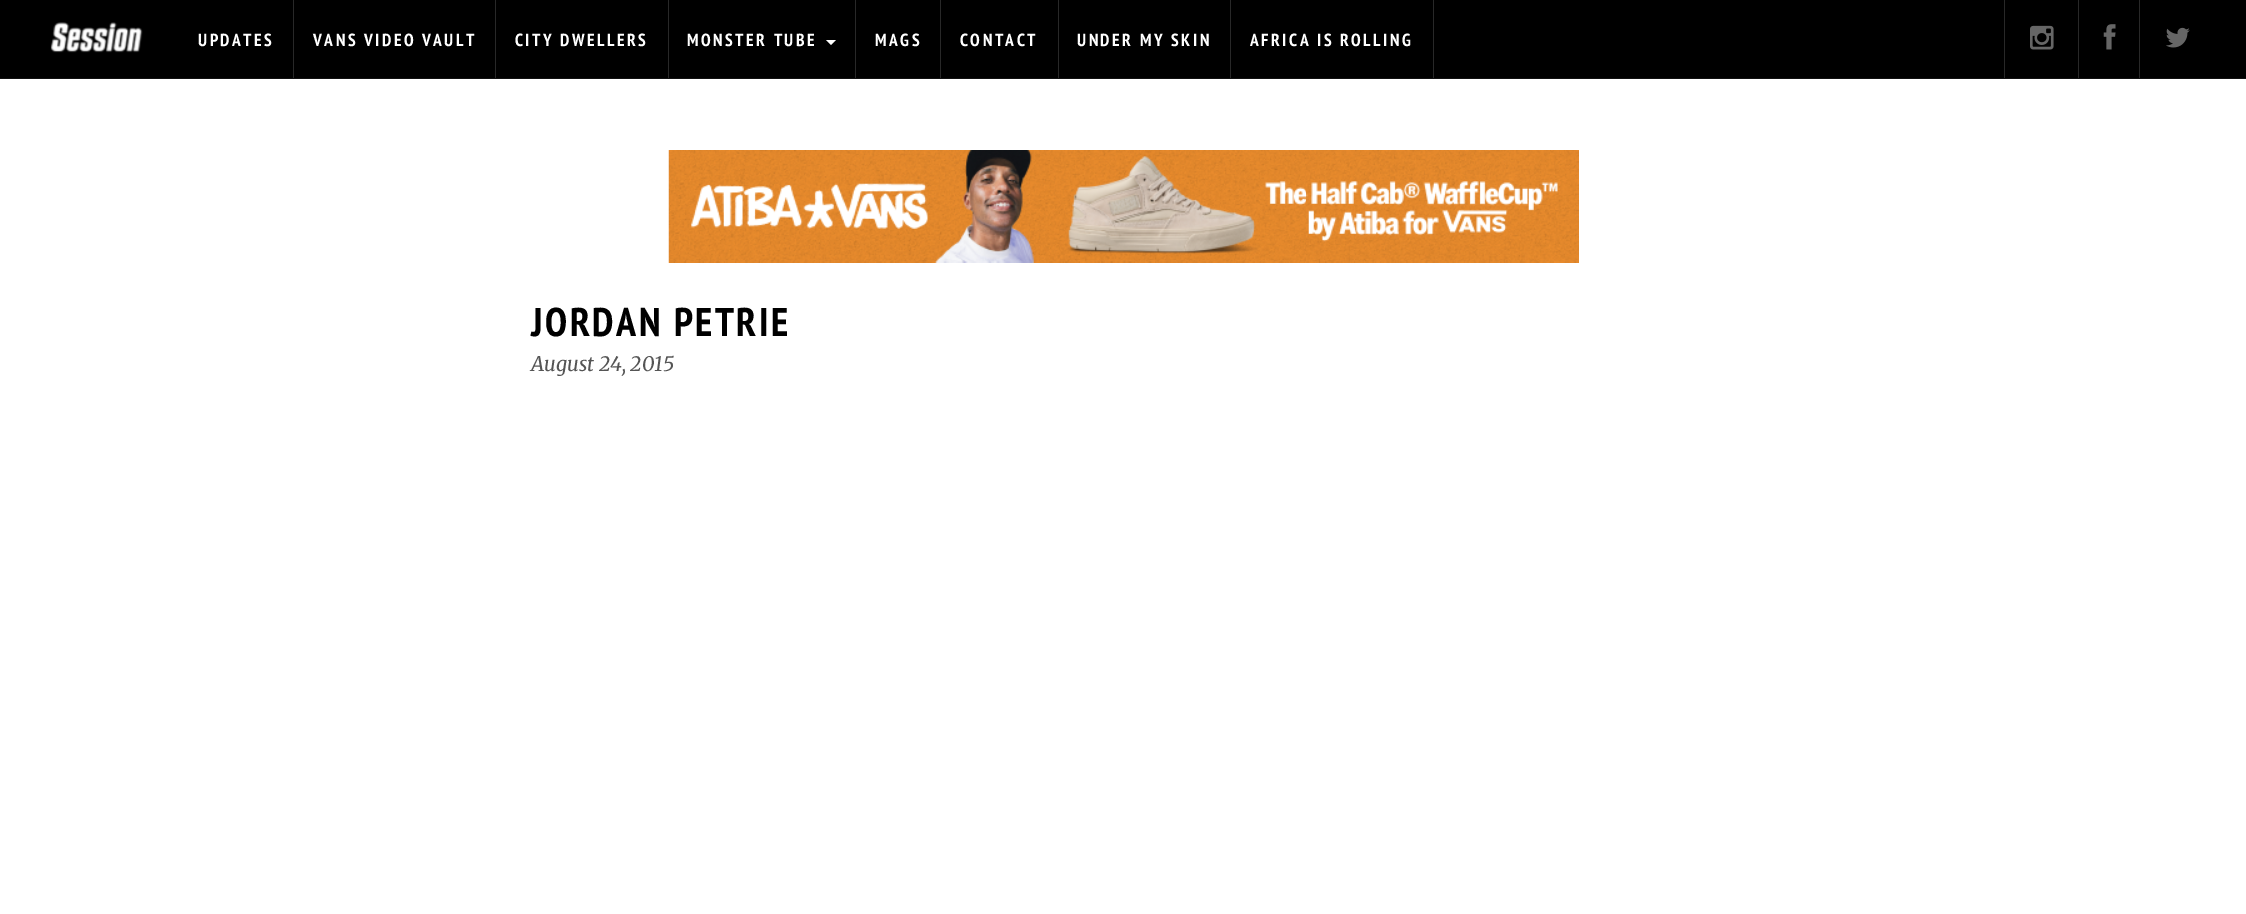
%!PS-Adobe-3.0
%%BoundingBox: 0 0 2246 914
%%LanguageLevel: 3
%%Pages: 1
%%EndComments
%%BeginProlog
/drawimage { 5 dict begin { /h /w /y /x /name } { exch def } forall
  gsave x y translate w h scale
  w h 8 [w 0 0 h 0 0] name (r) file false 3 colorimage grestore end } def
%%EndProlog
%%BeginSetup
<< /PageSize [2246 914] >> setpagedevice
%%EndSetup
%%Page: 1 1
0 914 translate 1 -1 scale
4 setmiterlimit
1 setgray
0 0 2246 914 rectfill
0 setgray
0 0 2246 78 rectfill
0.067 setgray
0 78 2246 1 rectfill
(images/1.raw) 50 22 93 31 drawimage
0.157 setgray
293 0 1 78 rectfill
495 0 1 78 rectfill
668 0 1 78 rectfill
855 0 1 78 rectfill
1 setgray
newpath 826 40 moveto 836 40 lineto 831 45 lineto closepath fill
0.157 setgray
940 0 1 78 rectfill
1058 0 1 78 rectfill
1230 0 1 78 rectfill
1433 0 1 78 rectfill
2004 0 1 78 rectfill
(images/2.raw) 2030 25 24 25 drawimage
2078 0 1 78 rectfill
(images/3.raw) 2103 24 13 26 drawimage
2139 0 1 78 rectfill
(images/4.raw) 2166 27 24 21 drawimage
(images/5.raw) 668 150 911 113 drawimage
/PTSansNarrow-Bold [17.5 0 0 -17.5 0 0] selectfont
1 setgray
198 46 moveto 2.5 0 (UPDATES) ashow
313 46 moveto 2.5 0 (VANS VIDEO VAULT) ashow
515 46 moveto 2.5 0 (CITY DWELLERS) ashow
687 46 moveto 2.5 0 (MONSTER TUBE) ashow
875 46 moveto 2.5 0 (MAGS) ashow
960 46 moveto 2.5 0 (CONTACT) ashow
1077 46 moveto 2.5 0 (UNDER MY SKIN) ashow
1250 46 moveto 2.5 0 (AFRICA IS ROLLING) ashow
/PTSansNarrow-Bold [40 0 0 -40 0 0] selectfont
0 setgray
531 336 moveto 2.5 0 (JORDAN PETRIE) ashow
/Merriweather-Italic [20 0 0 -20 0 0] selectfont
0.333 setgray
531 371 moveto (August 24, 2015) show
showpage
%%EOF
